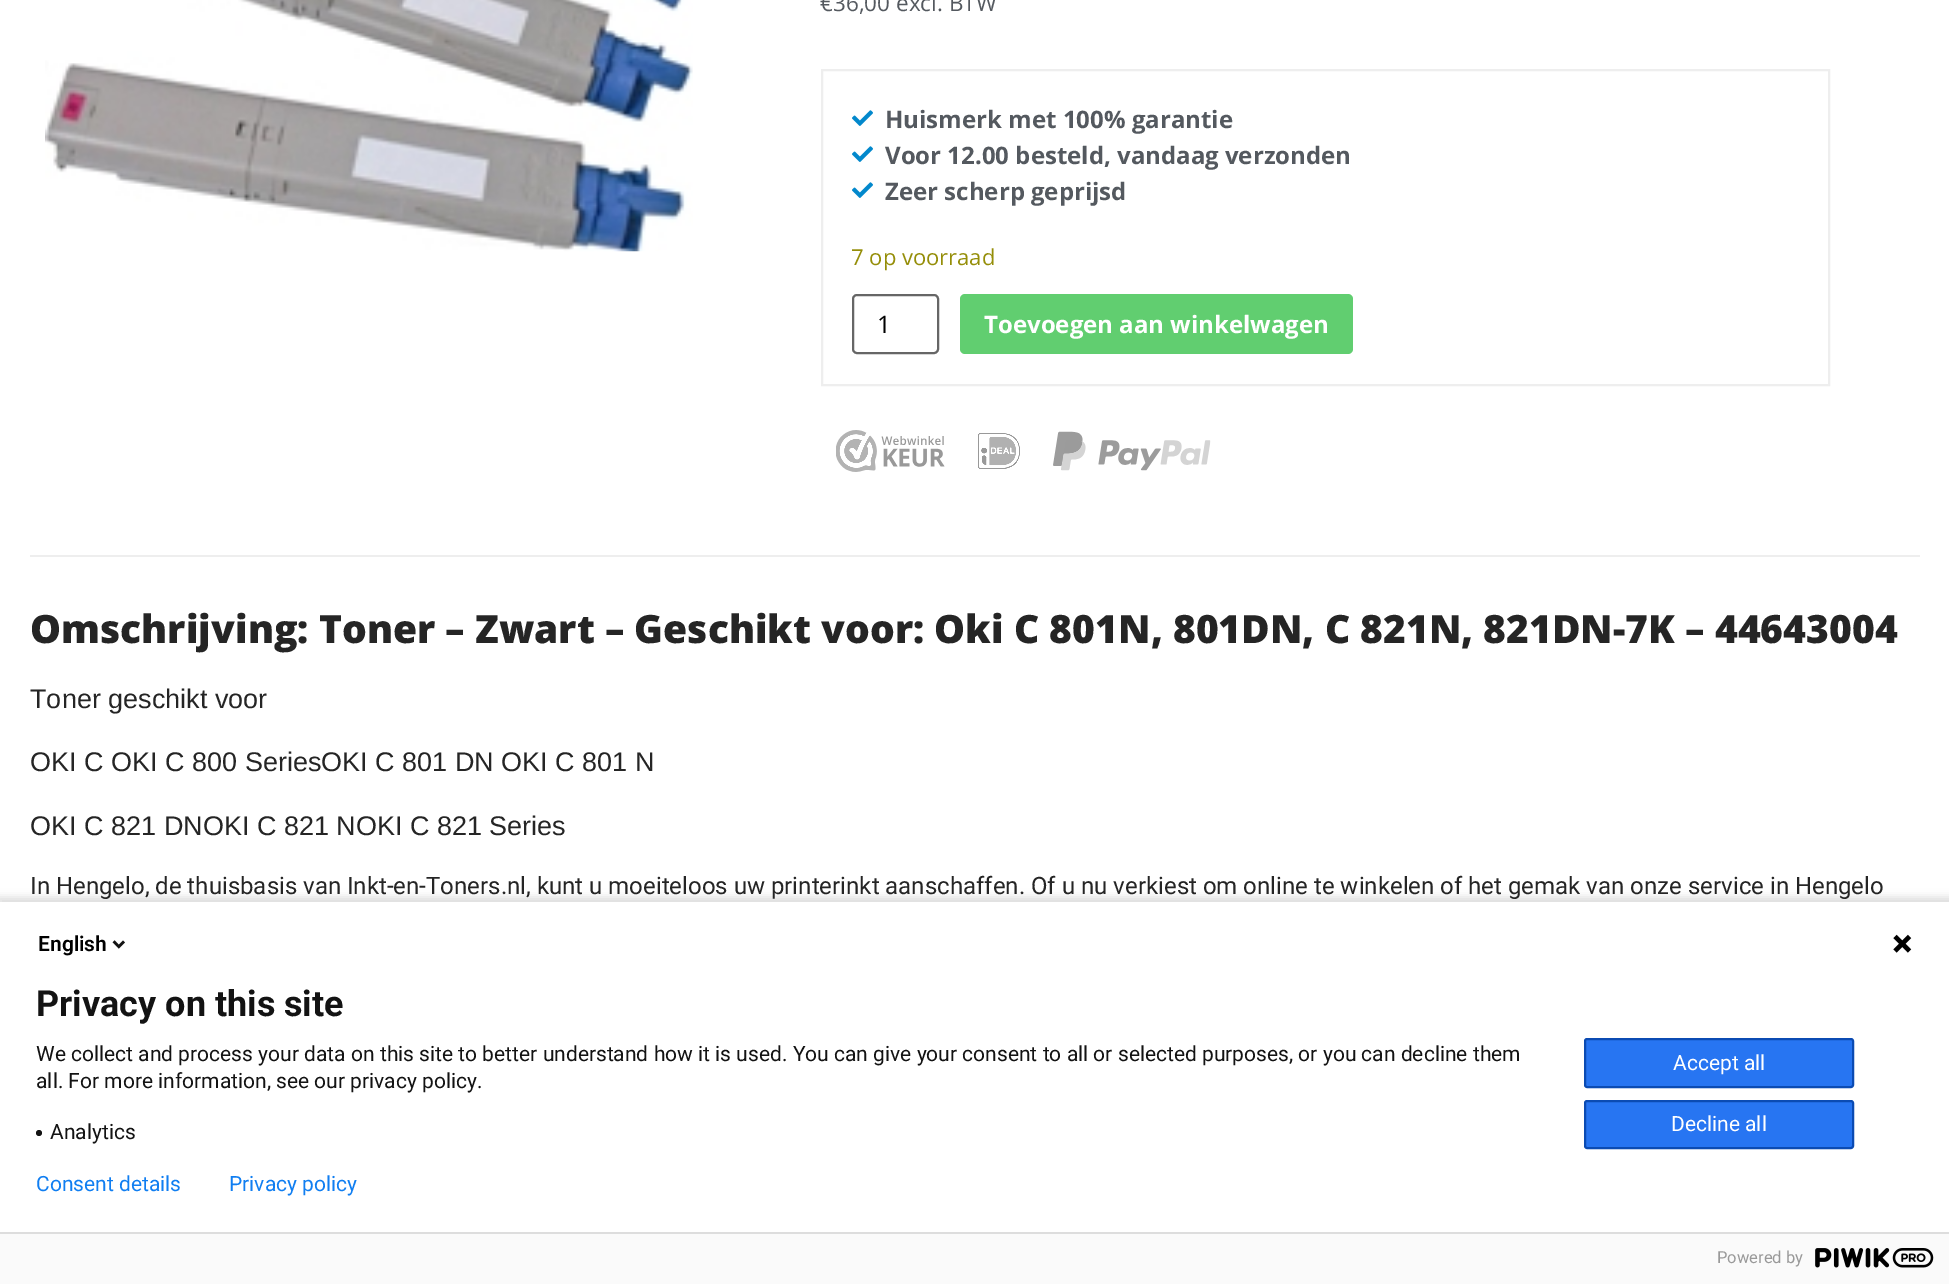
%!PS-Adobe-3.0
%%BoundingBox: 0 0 1949 1284
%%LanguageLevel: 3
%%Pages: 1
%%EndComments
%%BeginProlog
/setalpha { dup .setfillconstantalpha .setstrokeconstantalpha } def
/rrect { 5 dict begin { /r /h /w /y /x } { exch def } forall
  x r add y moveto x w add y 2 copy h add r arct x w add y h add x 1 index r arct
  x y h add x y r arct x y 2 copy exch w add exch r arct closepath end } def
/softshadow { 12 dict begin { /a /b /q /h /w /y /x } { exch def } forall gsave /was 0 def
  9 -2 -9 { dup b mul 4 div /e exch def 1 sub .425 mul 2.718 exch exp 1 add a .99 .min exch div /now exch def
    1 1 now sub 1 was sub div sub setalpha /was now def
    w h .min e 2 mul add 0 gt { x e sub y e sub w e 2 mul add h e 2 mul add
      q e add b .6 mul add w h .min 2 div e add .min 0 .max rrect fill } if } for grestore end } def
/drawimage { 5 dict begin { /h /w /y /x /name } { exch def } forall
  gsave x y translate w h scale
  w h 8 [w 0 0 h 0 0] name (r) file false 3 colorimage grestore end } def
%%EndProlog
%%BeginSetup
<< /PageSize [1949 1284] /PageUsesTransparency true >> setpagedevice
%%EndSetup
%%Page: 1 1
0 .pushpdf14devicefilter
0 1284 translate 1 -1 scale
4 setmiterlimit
1 setgray
0 0 1949 1284 rectfill
(images/1.raw) 45 0 648 252 drawimage
0.933 setgray
2 setlinewidth
822 70 1007 315 rectstroke
(images/2.raw) 852 110 21 16 drawimage
(images/2.raw) 852 146 21 16 drawimage
(images/2.raw) 852 182 21 16 drawimage
0.4 setgray
853 295 85 58 4 rrect stroke
0.38 0.808 0.439 setrgbcolor
960 294 393 60 5 rrect fill
(images/3.raw) 836 430 109 42 drawimage
(images/4.raw) 978 433 42 36 drawimage
(images/5.raw) 1053 431 158 40 drawimage
0.933 setgray
30 555 1890 2 rectfill
0 setgray
-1 897 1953 386 0 4 0.14 softshadow
1 setgray
0 902 1949 330 rectfill
(images/6.raw) 112 940 13 9 drawimage
(images/7.raw) 1893 934 19 19 drawimage
0.075 setgray
newpath 39 1133 3 0 360 arc closepath fill
0.153 0.459 0.949 setrgbcolor
1585 1039 268 48 2 rrect gsave fill grestore
0.043 0.294 0.702 setrgbcolor
stroke
0.153 0.459 0.949 setrgbcolor
1585 1101 268 47 2 rrect gsave fill grestore
0.043 0.294 0.702 setrgbcolor
stroke
0.98 setgray
0 1234 1949 50 rectfill
0.867 setgray
0 1232 1949 2 rectfill
(images/8.raw) 1815 1248 119 20 drawimage
/OpenSans-Regular [22.5 0 0 -22.5 0 0] selectfont
0.329 0.349 0.373 setrgbcolor
820 11 moveto (€36,00 excl. BTW) show
/OpenSans-Bold [24 0 0 -24 0 0] selectfont
885 128 moveto (Huismerk met 100% garantie) show
885 164 moveto (Voor 12.00 besteld, vandaag verzonden) show
885 200 moveto (Zeer scherp geprijsd) show
/OpenSans-Regular [22 0 0 -22 0 0] selectfont
0.584 0.557 0.035 setrgbcolor
851 265 moveto (7 op voorraad) show
/OpenSans-Regular [24 0 0 -24 0 0] selectfont
0 setgray
877 333 moveto (1) show
/OpenSans-Bold [24 0 0 -24 0 0] selectfont
1 setgray
984 333 moveto (Toevoegen aan winkelwagen) show
/OpenSans-ExtraBold [39 0 0 -39 0 0] selectfont
0.145 setgray
30 643 moveto (Omschrijving: Toner – Zwart – Geschikt voor: Oki C 801N, 801DN, C 821N, 821DN-7K – 44643004) show
/LiberationSans-Regular [27 0 0 -27 0 0] selectfont
30 708 moveto (Toner geschikt voor) show
30 771 moveto (OKI C OKI C 800 SeriesOKI C 801 DN OKI C 801 N) show
30 835 moveto (OKI C 821 DNOKI C 821 NOKI C 821 Series) show
/Roboto-Regular [24 0 0 -24 0 0] selectfont
30 894 moveto (In Hengelo, de thuisbasis van Inkt-en-Toners.nl, kunt u moeiteloos uw printerinkt aanschaffen. Of u nu verkiest om online te winkelen of het gemak van onze service in Hengelo) show
/Roboto-SemiBold [21 0 0 -21 0 0] selectfont
0 setgray
38 951 moveto (English) show
/Roboto-Bold [36 0 0 -36 0 0] selectfont
0.075 setgray
36 1016 moveto (Privacy on this site) show
/Roboto-Regular [21 0 0 -21 0 0] selectfont
36 1061 moveto (We collect and process your data on this site to better understand how it is used. You can give your consent to all or selected purposes, or you can decline them) show
36 1088 moveto (all. For more information, see our privacy policy.) show
50 1139 moveto (Analytics) show
1 setgray
1673 1070 moveto (Accept all) show
1671 1131 moveto (Decline all) show
0.063 0.494 0.945 setrgbcolor
36 1191 moveto (Consent details) show
229 1191 moveto (Privacy policy) show
/Roboto-Regular [16.5 0 0 -16.5 0 0] selectfont
0.6 setgray
1717 1263 moveto (Powered by) show
.poppdf14devicefilter showpage
%%EOF
